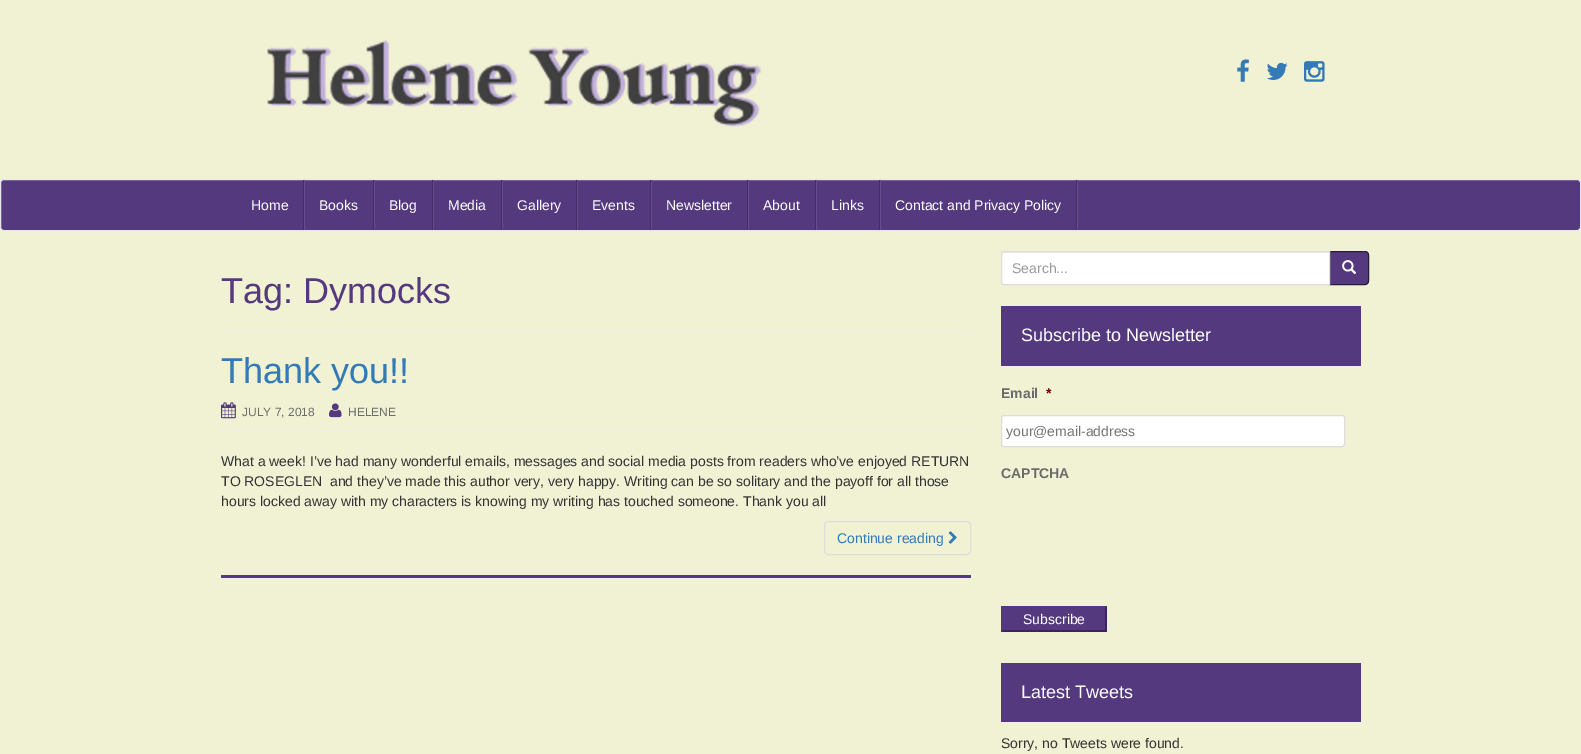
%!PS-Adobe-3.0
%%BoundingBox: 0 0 1581 754
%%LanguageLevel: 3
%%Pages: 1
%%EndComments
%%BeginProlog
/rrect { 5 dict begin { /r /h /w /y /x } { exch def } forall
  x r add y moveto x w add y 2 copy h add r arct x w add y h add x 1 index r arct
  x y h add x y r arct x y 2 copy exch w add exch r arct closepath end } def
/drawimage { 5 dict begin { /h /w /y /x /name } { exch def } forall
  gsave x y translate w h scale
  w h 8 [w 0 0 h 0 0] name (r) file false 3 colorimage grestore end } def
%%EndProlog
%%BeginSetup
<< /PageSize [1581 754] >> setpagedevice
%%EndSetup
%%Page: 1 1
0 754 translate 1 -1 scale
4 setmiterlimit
0.945 0.945 0.831 setrgbcolor
0 0 1581 754 rectfill
(images/1.raw) 267 40 495 87 drawimage
(images/2.raw) 1237 59 12 23 drawimage
(images/3.raw) 1266 62 22 18 drawimage
(images/4.raw) 1304 61 21 21 drawimage
0.329 0.224 0.494 setrgbcolor
0.5 179.5 1580 51 3.5 rrect gsave fill grestore
0.906 setgray
stroke
0.396 0.302 0.545 setrgbcolor
304 180 1 50 rectfill
0.263 0.18 0.396 setrgbcolor
303 180 1 50 rectfill
0.396 0.302 0.545 setrgbcolor
374 180 1 50 rectfill
0.263 0.18 0.396 setrgbcolor
373 180 1 50 rectfill
0.396 0.302 0.545 setrgbcolor
433 180 1 50 rectfill
0.263 0.18 0.396 setrgbcolor
432 180 1 50 rectfill
0.396 0.302 0.545 setrgbcolor
502 180 1 50 rectfill
0.263 0.18 0.396 setrgbcolor
501 180 1 50 rectfill
0.396 0.302 0.545 setrgbcolor
577 180 1 50 rectfill
0.263 0.18 0.396 setrgbcolor
576 180 1 50 rectfill
0.396 0.302 0.545 setrgbcolor
651 180 1 50 rectfill
0.263 0.18 0.396 setrgbcolor
650 180 1 50 rectfill
0.396 0.302 0.545 setrgbcolor
748 180 1 50 rectfill
0.263 0.18 0.396 setrgbcolor
747 180 1 50 rectfill
0.396 0.302 0.545 setrgbcolor
816 180 1 50 rectfill
0.263 0.18 0.396 setrgbcolor
815 180 1 50 rectfill
0.396 0.302 0.545 setrgbcolor
880 180 1 50 rectfill
0.263 0.18 0.396 setrgbcolor
879 180 1 50 rectfill
0.396 0.302 0.545 setrgbcolor
1077 180 1 50 rectfill
0.263 0.18 0.396 setrgbcolor
1076 180 1 50 rectfill
0.933 setgray
221 330 750 1 rectfill
221 430 750 1 rectfill
(images/5.raw) 221 402 15 17 drawimage
(images/6.raw) 329 403 13 15 drawimage
0.867 setgray
824.5 521.5 146 33 3.5 rrect stroke
(images/7.raw) 948 531 9 13 drawimage
0.933 setgray
221 578 750 1 rectfill
0.329 0.224 0.494 setrgbcolor
221 575 750 3 rectfill
newpath 1329.5 251.5 moveto 1365 251.5 lineto 1367 251.5 1368.5 253 1368.5 255 curveto 1368.5 281 lineto 1368.5 283 1367 284.5 1365 284.5 curveto 1329.5 284.5 lineto closepath gsave fill grestore
0.165 0.11 0.247 setrgbcolor
stroke
1 setgray
newpath 1004 251 moveto 1330 251 lineto 1330 285 lineto 1004 285 lineto 1002.5 285 1001 283.5 1001 282 curveto 1001 254 lineto 1001 252.5 1002.5 251 1004 251 curveto closepath fill
0.925 setgray
newpath 1004 253 moveto 1329 253 lineto 1329 252 lineto 1003 252 lineto 1002 253 lineto 1002 255 lineto 1002 254 1003 253 1004 253 curveto closepath fill
0.867 setgray
newpath 1004 251.5 moveto 1329.5 251.5 lineto 1329.5 284.5 lineto 1004 284.5 lineto 1002.5 284.5 1001.5 283.5 1001.5 282 curveto 1001.5 254 lineto 1001.5 252.5 1002.5 251.5 1004 251.5 curveto closepath stroke
(images/8.raw) 1342 260 15 14 drawimage
0.329 0.224 0.494 setrgbcolor
1001 306 360 60 rectfill
0.933 setgray
1001 366 360 1 rectfill
1 setgray
1001.5 415.5 343 31 2.5 rrect gsave fill grestore
0.867 setgray
stroke
0.329 0.224 0.494 setrgbcolor
1001 606 106 26 rectfill
0.22 0.149 0.329 setrgbcolor
newpath 1107 606 moveto 1107 632 lineto 1105 630 lineto 1105 608 lineto closepath fill
newpath 1107 632 moveto 1001 632 lineto 1003 630 lineto 1105 630 lineto closepath fill
0.329 0.224 0.494 setrgbcolor
newpath 1001 632 moveto 1001 606 lineto 1003 608 lineto 1003 630 lineto closepath fill
1001 663 360 59 rectfill
0.933 setgray
1001 722 360 1 rectfill
/LiberationSans-Regular [14 0 0 -14 0 0] selectfont
1 setgray
251 210 moveto (Home) show
319 210 moveto (Books) show
389 210 moveto (Blog) show
448 210 moveto (Media) show
517 210 moveto (Gallery) show
592 210 moveto (Events) show
666 210 moveto (Newsletter) show
763 210 moveto (About) show
831 210 moveto (Links) show
895 210 moveto (Contact and Privacy Policy) show
/LiberationSans-Regular [36 0 0 -36 0 0] selectfont
0.329 0.224 0.494 setrgbcolor
221 303 moveto (Tag: Dymocks) show
0.2 0.478 0.718 setrgbcolor
221 383 moveto (Thank you!!) show
/LiberationSans-Regular [12 0 0 -12 0 0] selectfont
0.42 setgray
242 416 moveto (JULY 7, 2018) show
348 416 moveto (HELENE) show
/LiberationSans-Regular [14 0 0 -14 0 0] selectfont
0.2 setgray
221 466 moveto (What a week! I’ve had many wonderful emails, messages and social media posts from readers who’ve enjoyed RETURN) show
221 486 moveto (TO ROSEGLEN  and they’ve made this author very, very happy. Writing can be so solitary and the payoff for all those) show
221 506 moveto (hours locked away with my characters is knowing my writing has touched someone. Thank you all) show
0.2 0.478 0.718 setrgbcolor
837 543 moveto (Continue reading) show
0.6 setgray
1012 273 moveto (Search...) show
/LiberationSans-Regular [18 0 0 -18 0 0] selectfont
1 setgray
1021 341 moveto (Subscribe to Newsletter) show
/LiberationSans-Bold [14 0 0 -14 0 0] selectfont
0.42 setgray
1001 398 moveto (Email) show
0.475 0 0 setrgbcolor
1046 398 moveto (*) show
/LiberationSans-Regular [14 0 0 -14 0 0] selectfont
0.459 setgray
1006 436 moveto (your@email-address) show
/LiberationSans-Bold [14 0 0 -14 0 0] selectfont
0.42 setgray
1001 478 moveto (CAPTCHA) show
/LiberationSans-Regular [14 0 0 -14 0 0] selectfont
1 setgray
1023 624 moveto (Subscribe) show
/LiberationSans-Regular [18 0 0 -18 0 0] selectfont
1021 698 moveto (Latest Tweets) show
/LiberationSans-Regular [14 0 0 -14 0 0] selectfont
0.2 setgray
1001 748 moveto (Sorry, no Tweets were found.) show
showpage
%%EOF
